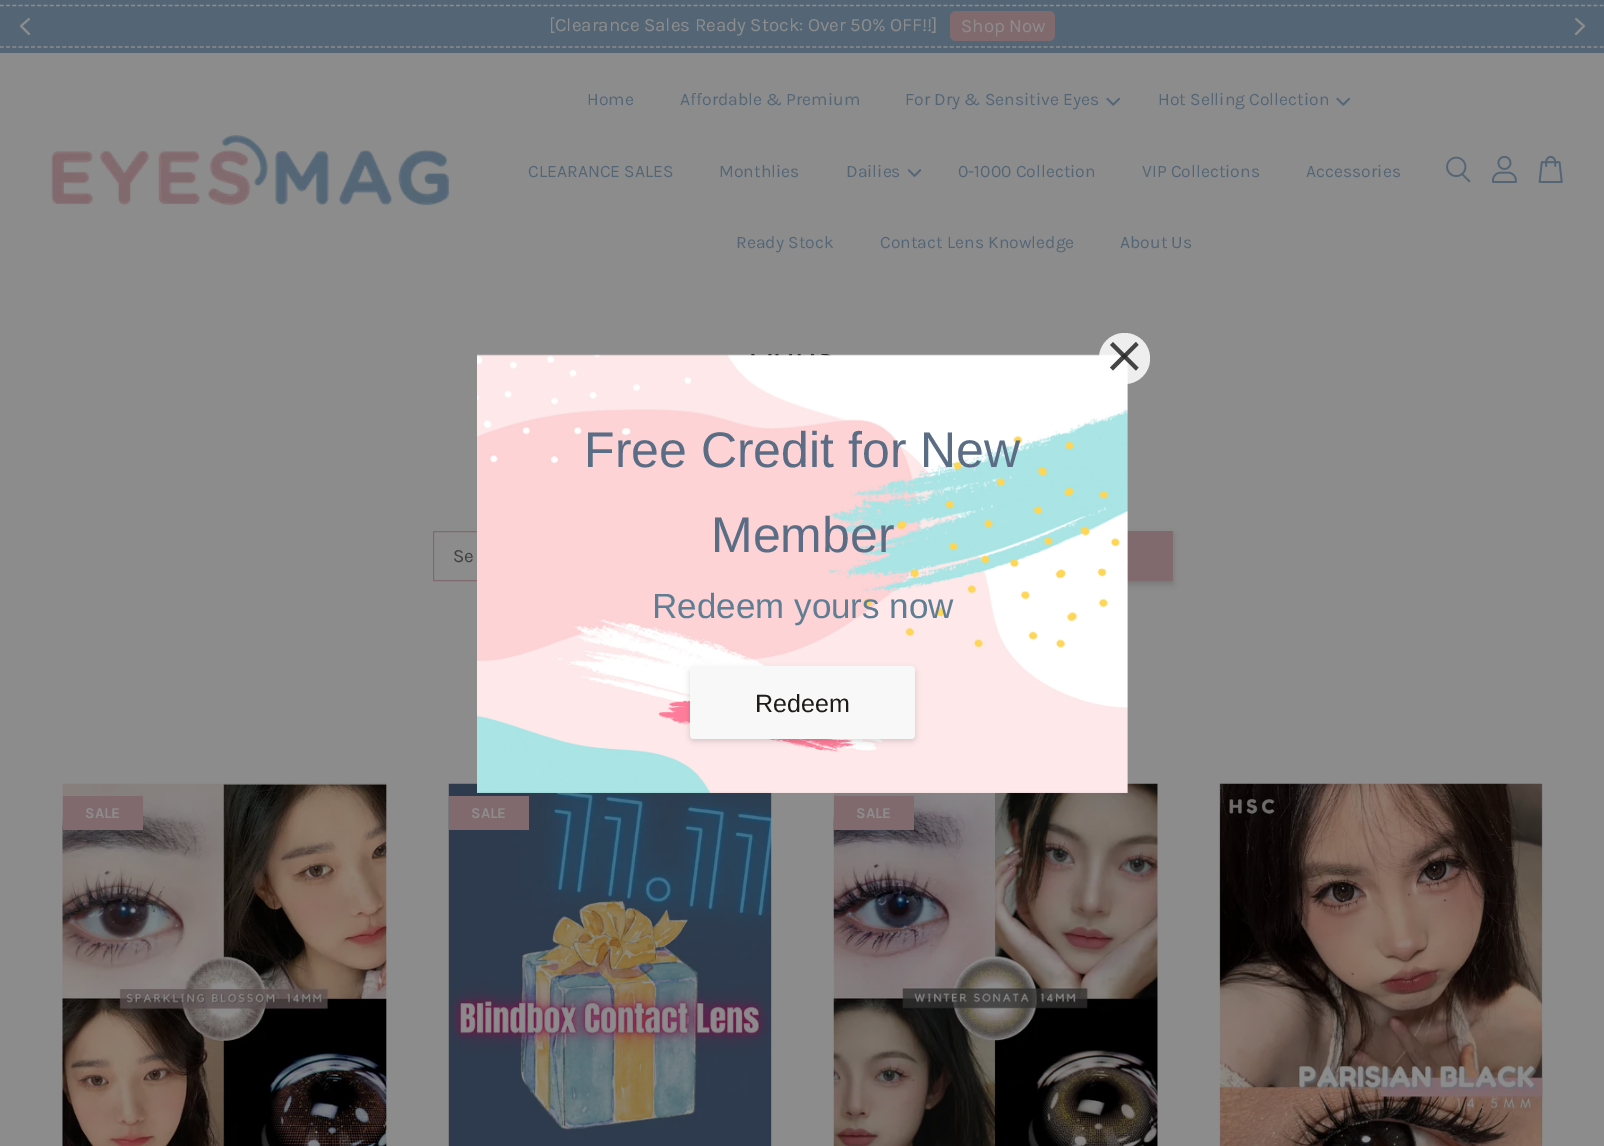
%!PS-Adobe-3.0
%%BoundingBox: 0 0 1604 1146
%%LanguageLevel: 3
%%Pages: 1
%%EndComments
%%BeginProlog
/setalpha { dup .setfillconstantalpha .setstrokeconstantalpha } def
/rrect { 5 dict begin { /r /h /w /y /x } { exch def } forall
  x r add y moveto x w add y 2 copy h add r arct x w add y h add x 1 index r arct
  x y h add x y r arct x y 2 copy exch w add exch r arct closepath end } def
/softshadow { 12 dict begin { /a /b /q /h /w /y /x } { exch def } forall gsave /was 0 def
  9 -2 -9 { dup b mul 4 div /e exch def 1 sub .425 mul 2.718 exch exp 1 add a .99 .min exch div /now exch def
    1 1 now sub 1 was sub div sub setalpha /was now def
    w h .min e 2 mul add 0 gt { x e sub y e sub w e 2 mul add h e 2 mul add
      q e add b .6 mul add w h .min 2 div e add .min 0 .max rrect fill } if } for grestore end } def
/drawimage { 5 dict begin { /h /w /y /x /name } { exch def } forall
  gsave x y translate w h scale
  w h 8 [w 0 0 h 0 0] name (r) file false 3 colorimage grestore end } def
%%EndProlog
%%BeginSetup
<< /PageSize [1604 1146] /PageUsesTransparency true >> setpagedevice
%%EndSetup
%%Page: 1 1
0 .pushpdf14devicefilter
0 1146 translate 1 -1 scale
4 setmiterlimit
0.549 setgray
0 0 1604 1146 rectfill
0.329 0.4 0.463 setrgbcolor
0 0 1604 53 rectfill
0.549 setgray
1.2 setlinewidth
[3.75 2.5] 0 setdash
newpath 0 5.5 moveto 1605 5.5 lineto stroke
newpath 0 47 moveto 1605 47 lineto stroke
1.9 setlinewidth
1 setlinecap
1 setlinejoin
[] 0 setdash
newpath 29 19 moveto 21 26 lineto 29 34 lineto stroke
0.506 0.416 0.427 setrgbcolor
950 11 105 30 6 rrect fill
0.549 setgray
newpath 1576 19 moveto 1584 26 lineto 1576 34 lineto stroke
(images/1.raw) 51 135 398 71 drawimage
(images/2.raw) 1106 97 14 9 drawimage
(images/2.raw) 1336 97 14 9 drawimage
(images/3.raw) 908 169 13 8 drawimage
(images/4.raw) 1446 156 25 27 drawimage
(images/5.raw) 1492 155 25 28 drawimage
(images/6.raw) 1538 155 25 28 drawimage
0.506 0.416 0.427 setrgbcolor
1 setlinewidth
0 setlinecap
0 setlinejoin
433.5 531.5 632 49 rectstroke
0 setgray
1066 534 107 50 0 3 0.15 softshadow
0.506 0.416 0.427 setrgbcolor
1127 531 46 50 rectfill
(images/8.raw) 1127 561 1 3 drawimage
(images/10.raw) 448 783 324 363 drawimage
(images/11.raw) 833 783 325 363 drawimage
(images/7.raw) 477 354 651 439 drawimage
0.85 setalpha
1 setgray
newpath 1124.5 358.5 25.5 0 360 arc closepath fill
0.149 setgray
newpath 1136 342 moveto 1138.5 345 lineto 1113 370.5 lineto 1110 367.5 lineto closepath fill
newpath 1110 345 moveto 1113 342 lineto 1138.5 367.5 lineto 1136 370.5 lineto closepath fill
1 setalpha
0 setgray
690 669 225 72 4 3 0.15 softshadow
0.973 setgray
690 666 225 73 4 rrect fill
(images/9.raw) 62 783 325 363 drawimage
0.506 0.416 0.427 setrgbcolor
63 796 80 34 rectfill
449 796 80 34 rectfill
834 796 80 34 rectfill
(images/12.raw) 1219 783 324 363 drawimage
/Karla-Regular [18.75 0 0 -18.75 0 0] selectfont
0.549 setgray
549 31 moveto ([Clearance Sales Ready Stock: Over 50% OFF!!]) show
961 32 moveto (Shop Now) show
/Karla-Regular [17.5 0 0 -17.5 0 0] selectfont
0.329 0.4 0.463 setrgbcolor
587 105 moveto (Home) show
680 105 moveto (Affordable & Premium) show
905 105 moveto (For Dry & Sensitive Eyes) show
1158 105 moveto (Hot Selling Collection) show
528 177 moveto (CLEARANCE SALES) show
719 177 moveto (Monthlies) show
846 177 moveto (Dailies) show
958 177 moveto (0-1000 Collection) show
1142 177 moveto (VIP Collections) show
1306 177 moveto (Accessories) show
736 248 moveto (Ready Stock) show
880 248 moveto (Contact Lens Knowledge) show
1120 248 moveto (About Us) show
/LiberationSans-Regular [50 0 0 -50 0 0] selectfont
0.353 0.427 0.522 setrgbcolor
584 467 moveto (Free Credit for New) show
711 552 moveto (Member) show
/LiberationSans-Regular [35 0 0 -35 0 0] selectfont
0.376 0.494 0.576 setrgbcolor
652 618 moveto (Redeem yours now) show
/LiberationSans-Regular [25 0 0 -25 0 0] selectfont
0.118 0.11 0.09 setrgbcolor
755 712 moveto (Redeem) show
/Karla-Regular [18.75 0 0 -18.75 0 0] selectfont
0.251 setgray
453 562 moveto (Se) show
/Karla-Bold [15 0 0 -15 0 0] selectfont
0.549 setgray
85 818 moveto (SALE) show
471 818 moveto (SALE) show
856 818 moveto (SALE) show
.poppdf14devicefilter showpage
%%EOF
